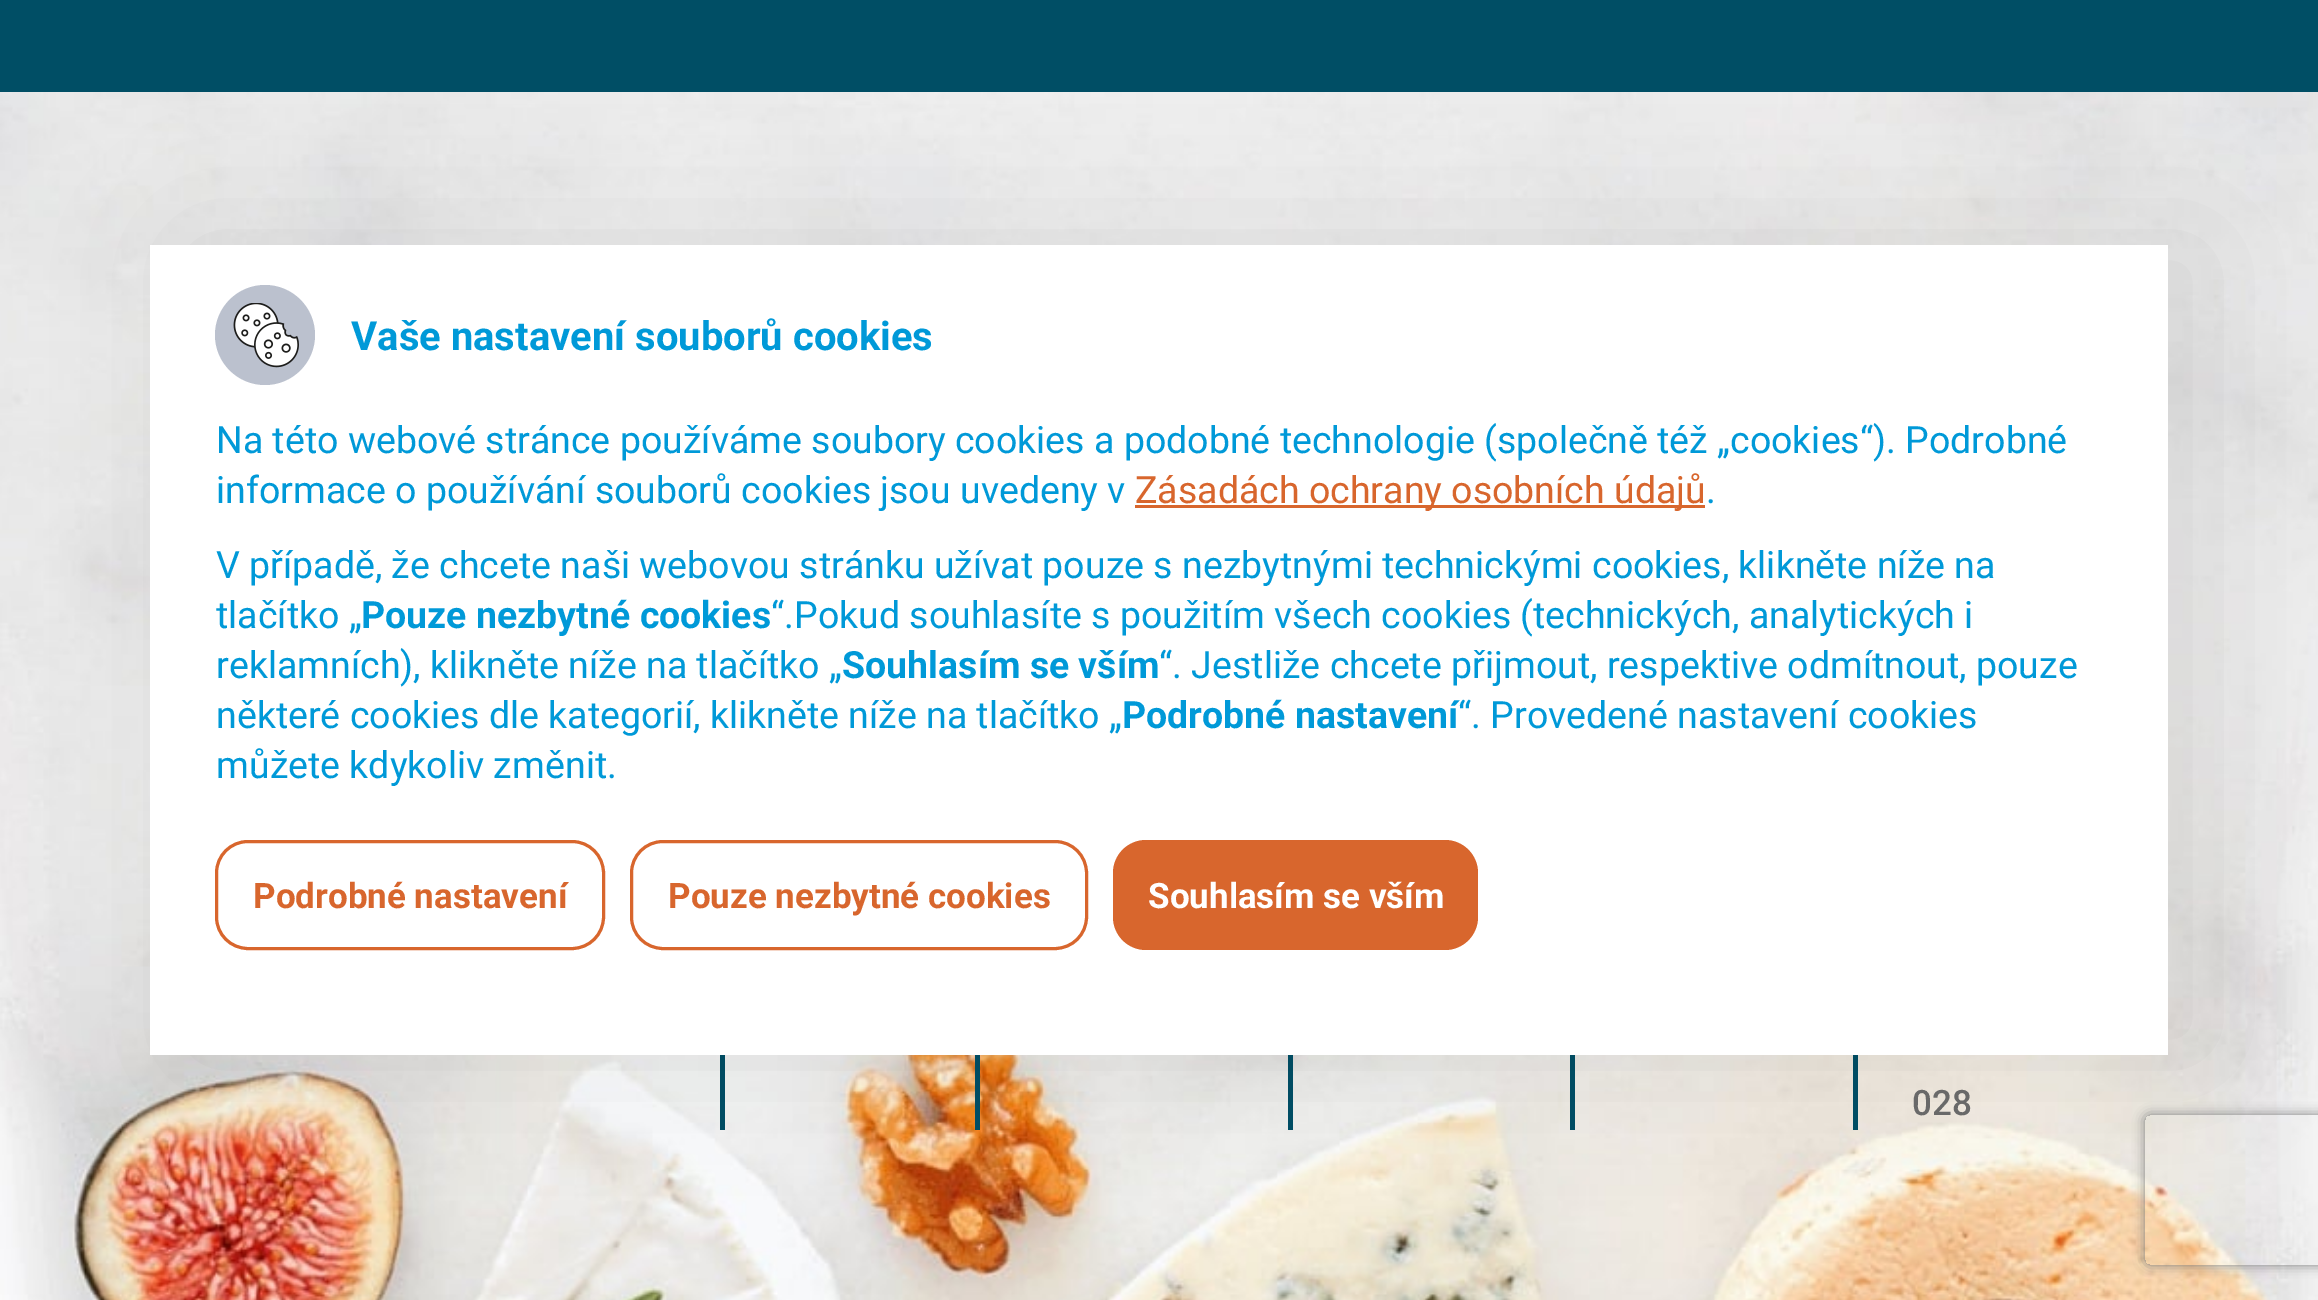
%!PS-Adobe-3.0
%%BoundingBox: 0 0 2318 1300
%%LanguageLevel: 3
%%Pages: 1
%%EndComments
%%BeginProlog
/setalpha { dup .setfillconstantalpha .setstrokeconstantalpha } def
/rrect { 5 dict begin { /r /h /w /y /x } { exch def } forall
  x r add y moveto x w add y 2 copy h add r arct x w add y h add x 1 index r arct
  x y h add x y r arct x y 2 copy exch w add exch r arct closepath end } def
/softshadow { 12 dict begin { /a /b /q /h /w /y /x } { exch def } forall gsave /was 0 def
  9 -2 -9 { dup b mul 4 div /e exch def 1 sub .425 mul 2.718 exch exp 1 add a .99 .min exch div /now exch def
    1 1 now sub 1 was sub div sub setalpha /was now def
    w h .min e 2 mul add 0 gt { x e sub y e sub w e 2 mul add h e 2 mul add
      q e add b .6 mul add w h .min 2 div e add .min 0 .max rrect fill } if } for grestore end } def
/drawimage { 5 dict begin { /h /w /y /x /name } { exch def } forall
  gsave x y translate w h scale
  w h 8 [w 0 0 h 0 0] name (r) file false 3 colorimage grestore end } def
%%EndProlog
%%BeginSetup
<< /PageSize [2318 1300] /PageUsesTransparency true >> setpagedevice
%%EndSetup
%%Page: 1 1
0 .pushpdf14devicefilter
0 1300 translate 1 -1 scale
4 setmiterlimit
0 0.306 0.396 setrgbcolor
0 0 2318 1300 rectfill
(images/2.raw) 0 92 2318 1208 drawimage
720 1055 5 75 rectfill
975 1055 5 75 rectfill
1288 1055 5 75 rectfill
1570 1055 5 75 rectfill
1853 1055 5 75 rectfill
0 setgray
190 245 2018 810 0 62.5 0.09 softshadow
1 setgray
150 245 2018 810 rectfill
0.733 0.757 0.808 setrgbcolor
newpath 265 335 50 0 360 arc closepath fill
(images/1.raw) 233 303 66 65 drawimage
0.847 0.4 0.176 setrgbcolor
1135 505 570 3 rectfill
3 setlinewidth
216.5 841.5 387 107 31.5 rrect stroke
631.5 841.5 455 107 31.5 rrect stroke
1113 840 365 110 33 rrect fill
gsave
newpath 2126 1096 moveto 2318 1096 lineto 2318 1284 lineto 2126 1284 lineto closepath 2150 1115 moveto 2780 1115 lineto 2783 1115 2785 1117 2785 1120 curveto 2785 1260 lineto 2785 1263 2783 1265 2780 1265 curveto 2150 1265 lineto 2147 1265 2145 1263 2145 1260 curveto 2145 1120 lineto 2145 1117 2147 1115 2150 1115 curveto closepath eoclip newpath
0.502 setgray
2145 1115 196 150 5 6 1 softshadow
grestore
/Roboto-Bold [40 0 0 -40 0 0] selectfont
0 0.6 0.847 setrgbcolor
351 350 moveto (Vaše nastavení souborů cookies) show
/Roboto-Regular [37.5 0 0 -37.5 0 0] selectfont
216 453 moveto (Na této webové stránce používáme soubory cookies a podobné technologie \(společně též „cookies“\). Podrobné) show
216 503 moveto (informace o používání souborů cookies jsou uvedeny v) show
0.847 0.4 0.176 setrgbcolor
1135 503 moveto (Zásadách ochrany osobních údajů) show
0 0.6 0.847 setrgbcolor
1706 503 moveto (.) show
216 578 moveto (V případě, že chcete naši webovou stránku užívat pouze s nezbytnými technickými cookies, klikněte níže na) show
216 628 moveto (tlačítko „) show
/Roboto-Bold [37.5 0 0 -37.5 0 0] selectfont
361 628 moveto (Pouze nezbytné cookies) show
/Roboto-Regular [37.5 0 0 -37.5 0 0] selectfont
771 628 moveto (“.Pokud souhlasíte s použitím všech cookies \(technických, analytických i) show
216 678 moveto (reklamních\), klikněte níže na tlačítko „) show
/Roboto-Bold [37.5 0 0 -37.5 0 0] selectfont
842 678 moveto (Souhlasím se vším) show
/Roboto-Regular [37.5 0 0 -37.5 0 0] selectfont
1159 678 moveto (“. Jestliže chcete přijmout, respektive odmítnout, pouze) show
216 728 moveto (některé cookies dle kategorií, klikněte níže na tlačítko „) show
/Roboto-Bold [37.5 0 0 -37.5 0 0] selectfont
1122 728 moveto (Podrobné nastavení) show
/Roboto-Regular [37.5 0 0 -37.5 0 0] selectfont
1458 728 moveto (“. Provedené nastavení cookies) show
216 778 moveto (můžete kdykoliv změnit.) show
/Roboto-Bold [35 0 0 -35 0 0] selectfont
0.847 0.4 0.176 setrgbcolor
253 908 moveto (Podrobné nastavení) show
668 908 moveto (Pouze nezbytné cookies) show
1 setgray
1148 908 moveto (Souhlasím se vším) show
/Roboto-Medium [35 0 0 -35 0 0] selectfont
0.412 setgray
1912 1115 moveto (028) show
.poppdf14devicefilter showpage
%%EOF
